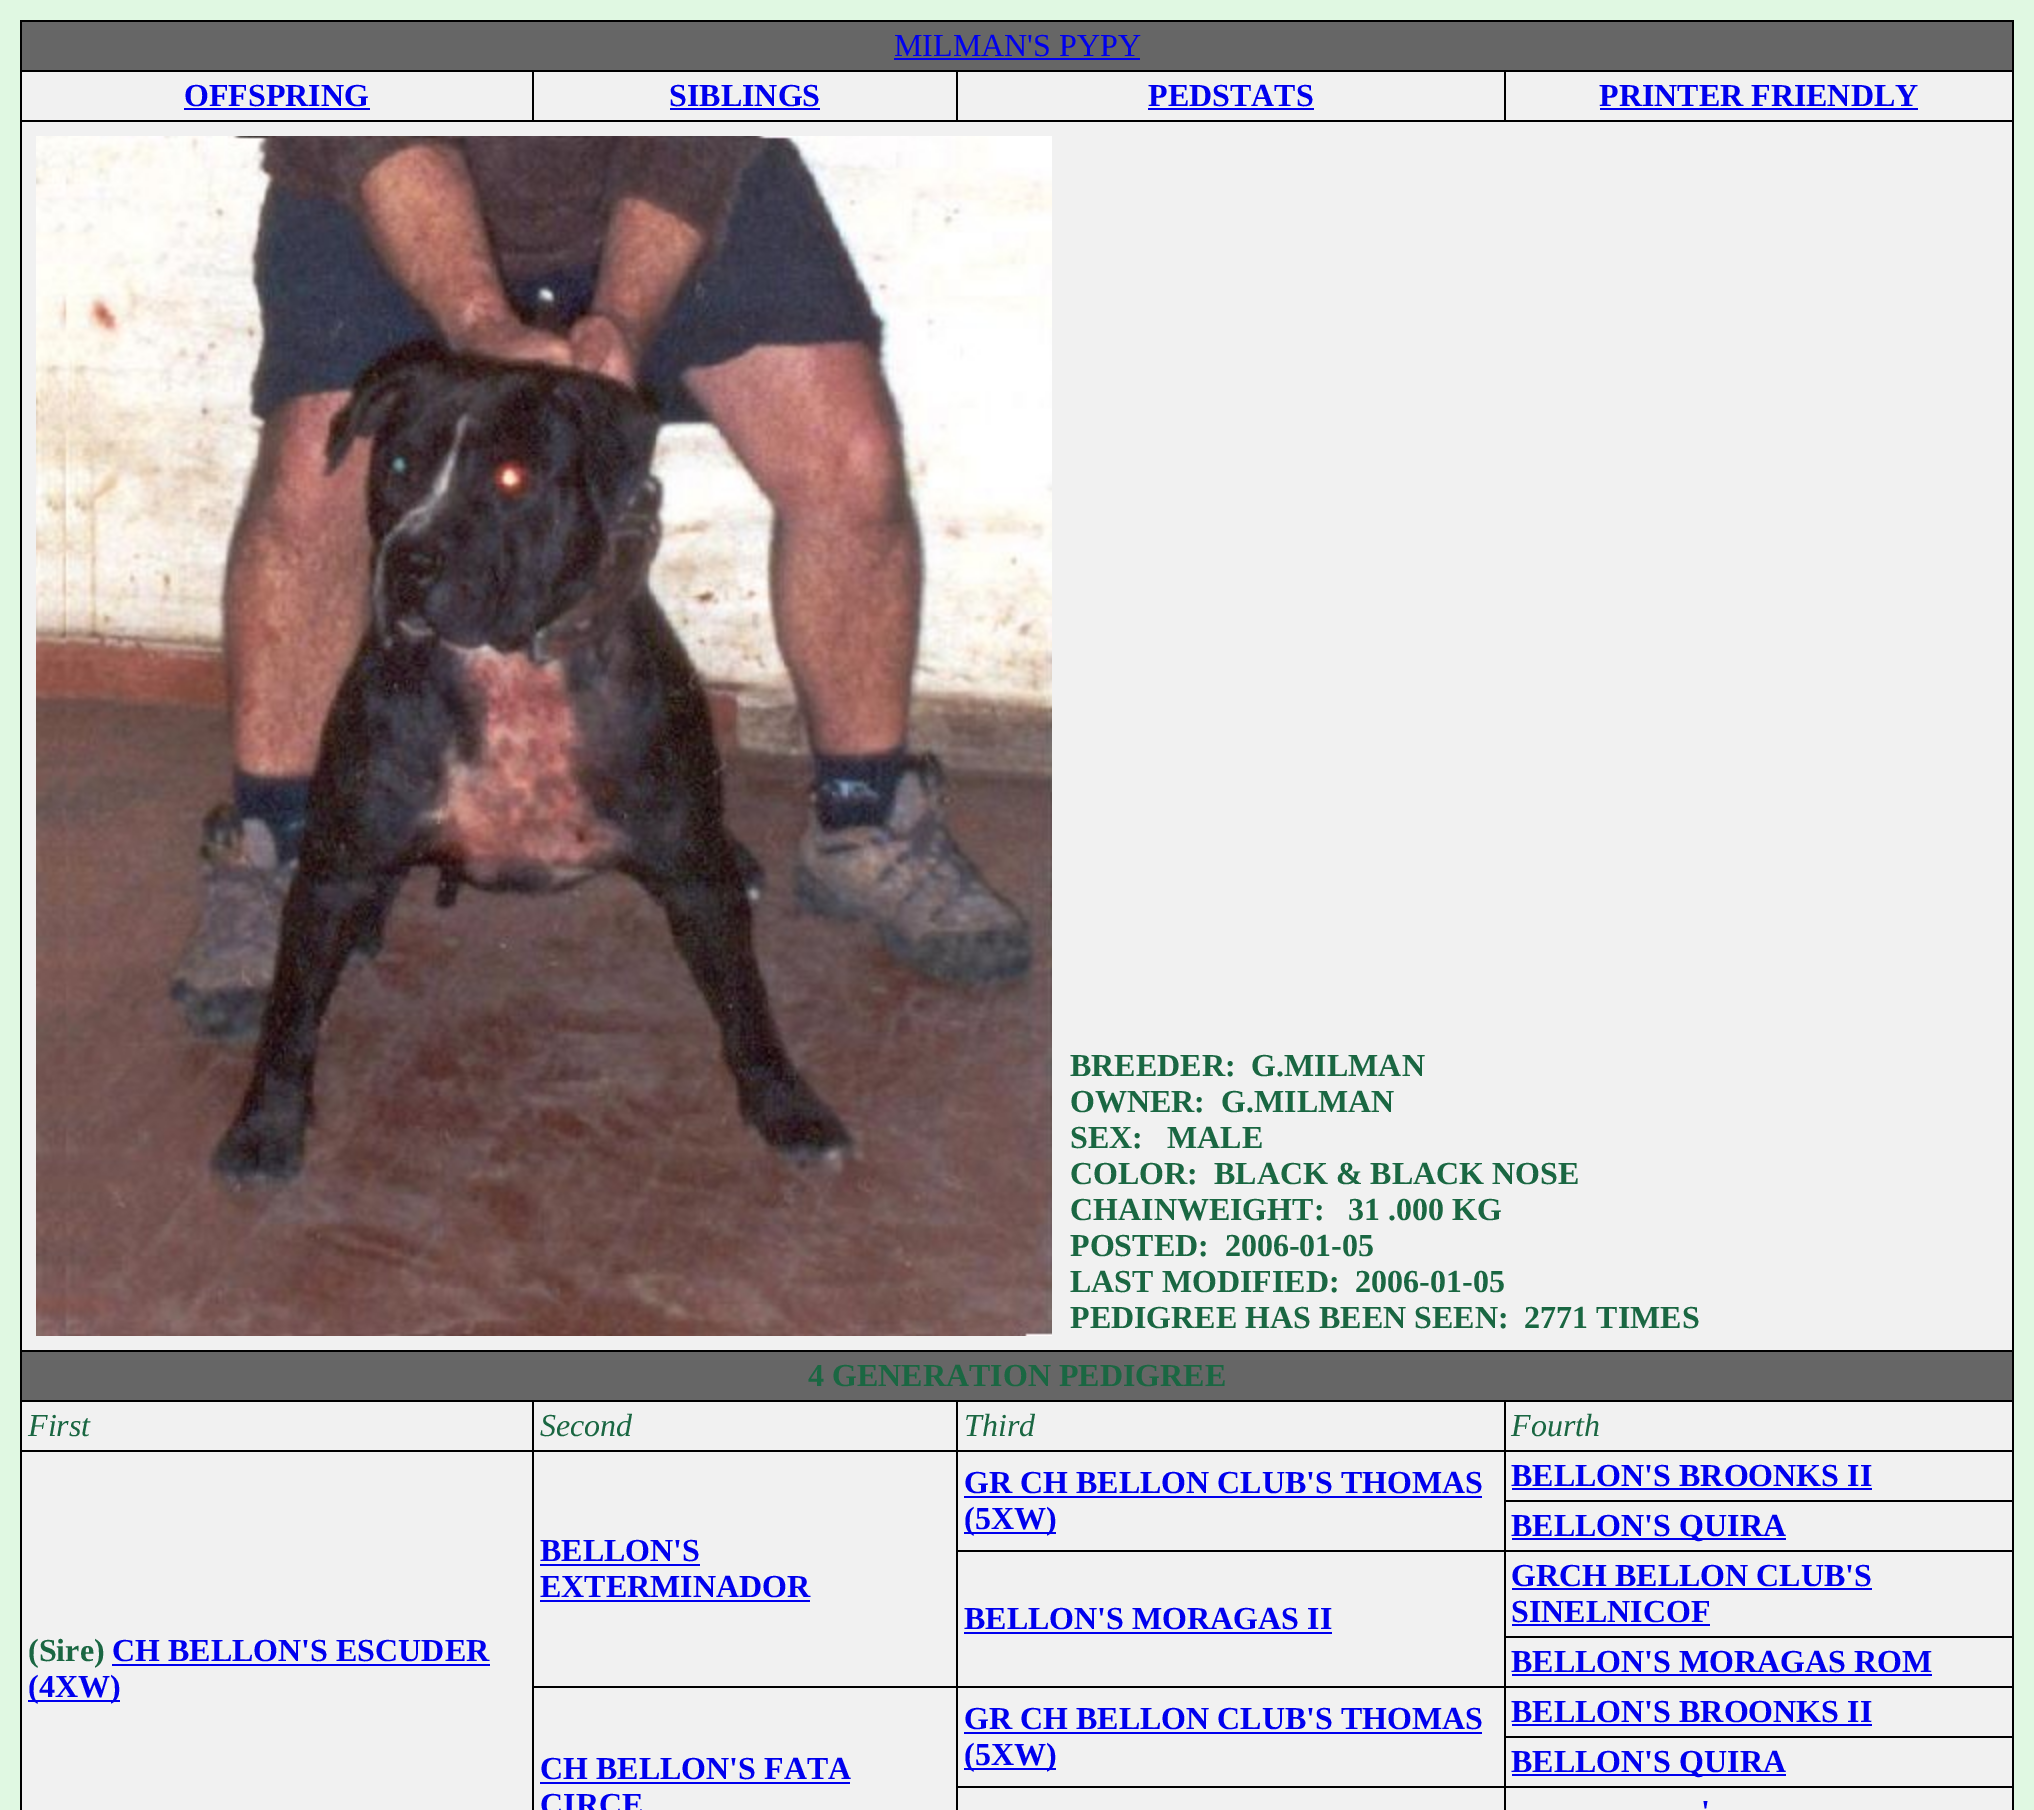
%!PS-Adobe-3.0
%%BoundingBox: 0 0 2034 1810
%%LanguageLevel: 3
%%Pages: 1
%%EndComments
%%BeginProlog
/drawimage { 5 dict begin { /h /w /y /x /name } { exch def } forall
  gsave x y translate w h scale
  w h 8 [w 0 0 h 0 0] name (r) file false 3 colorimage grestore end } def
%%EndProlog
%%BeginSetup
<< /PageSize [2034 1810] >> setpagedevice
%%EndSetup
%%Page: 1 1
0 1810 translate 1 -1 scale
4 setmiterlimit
0.878 0.973 0.886 setrgbcolor
0 0 2034 1810 rectfill
0 setgray
20 20 1994 1790 rectfill
0.4 setgray
22 22 1990 48 rectfill
0 0 0.933 setrgbcolor
894 58 246 2 rectfill
0.945 setgray
22 72 510 48 rectfill
0 0 0.933 setrgbcolor
184 108 186 2 rectfill
0.945 setgray
534 72 422 48 rectfill
0 0 0.933 setrgbcolor
670 108 150 2 rectfill
0.945 setgray
958 72 546 48 rectfill
0 0 0.933 setrgbcolor
1148 108 166 2 rectfill
0.945 setgray
1506 72 506 48 rectfill
0 0 0.933 setrgbcolor
1600 108 318 2 rectfill
0.945 setgray
22 122 1990 1228 rectfill
(images/1.raw) 36 136 1016 1200 drawimage
0.4 setgray
22 1352 1990 48 rectfill
0.945 setgray
22 1402 510 48 rectfill
534 1402 422 48 rectfill
958 1402 546 48 rectfill
1506 1402 506 48 rectfill
958 1452 546 98 rectfill
0 0 0.933 setrgbcolor
964 1496 518 2 rectfill
964 1532 92 2 rectfill
0.945 setgray
1506 1452 506 48 rectfill
0 0 0.933 setrgbcolor
1512 1488 360 2 rectfill
0.945 setgray
534 1452 422 234 rectfill
0 0 0.933 setrgbcolor
540 1564 160 2 rectfill
540 1600 270 2 rectfill
0.945 setgray
22 1452 510 358 rectfill
0 0 0.933 setrgbcolor
112 1664 378 2 rectfill
28 1700 92 2 rectfill
0.945 setgray
1506 1502 506 48 rectfill
0 0 0.933 setrgbcolor
1512 1538 274 2 rectfill
0.945 setgray
958 1552 546 134 rectfill
0 0 0.933 setrgbcolor
964 1632 368 2 rectfill
0.945 setgray
1506 1552 506 84 rectfill
0 0 0.933 setrgbcolor
1512 1588 360 2 rectfill
1512 1624 198 2 rectfill
0.945 setgray
1506 1638 506 48 rectfill
0 0 0.933 setrgbcolor
1512 1674 420 2 rectfill
0.945 setgray
958 1688 546 98 rectfill
0 0 0.933 setrgbcolor
964 1732 518 2 rectfill
964 1768 92 2 rectfill
0.945 setgray
1506 1688 506 48 rectfill
0 0 0.933 setrgbcolor
1512 1724 360 2 rectfill
0.945 setgray
534 1688 422 122 rectfill
0 0 0.933 setrgbcolor
540 1782 310 2 rectfill
0.945 setgray
1506 1738 506 48 rectfill
0 0 0.933 setrgbcolor
1512 1774 274 2 rectfill
0.945 setgray
958 1788 546 22 rectfill
1506 1788 506 22 rectfill
/LiberationSerif-Regular [32 0 0 -32 0 0] selectfont
0 0 0.933 setrgbcolor
894 56 moveto (MILMAN'S PYPY) show
/LiberationSerif-Bold [32 0 0 -32 0 0] selectfont
184 106 moveto (OFFSPRING) show
669 106 moveto (SIBLINGS) show
1148 106 moveto (PEDSTATS) show
1599 106 moveto (PRINTER FRIENDLY) show
0.102 0.404 0.259 setrgbcolor
1070 1076 moveto (BREEDER:  G.MILMAN) show
1070 1112 moveto (OWNER:  G.MILMAN) show
1070 1148 moveto (SEX:   MALE) show
1070 1184 moveto (COLOR:  BLACK & BLACK NOSE) show
1070 1220 moveto (CHAINWEIGHT:   31 .000 KG) show
1070 1256 moveto (POSTED:  2006-01-05) show
1070 1292 moveto (LAST MODIFIED:  2006-01-05) show
1070 1328 moveto (PEDIGREE HAS BEEN SEEN:  2771 TIMES) show
808 1386 moveto (4 GENERATION PEDIGREE) show
/LiberationSerif-Italic [32 0 0 -32 0 0] selectfont
28 1436 moveto (First) show
540 1436 moveto (Second) show
964 1436 moveto (Third) show
1511 1436 moveto (Fourth) show
/LiberationSerif-Bold [32 0 0 -32 0 0] selectfont
0 0 0.933 setrgbcolor
964 1493 moveto (GR CH BELLON CLUB'S THOMAS) show
964 1529 moveto (\(5XW\)) show
1511 1486 moveto (BELLON'S BROONKS II) show
540 1561 moveto (BELLON'S) show
540 1597 moveto (EXTERMINADOR) show
0.102 0.404 0.259 setrgbcolor
28 1661 moveto (\(Sire\)) show
0 0 0.933 setrgbcolor
112 1661 moveto (CH BELLON'S ESCUDER) show
28 1697 moveto (\(4XW\)) show
1511 1536 moveto (BELLON'S QUIRA) show
964 1629 moveto (BELLON'S MORAGAS II) show
1511 1586 moveto (GRCH BELLON CLUB'S) show
1511 1622 moveto (SINELNICOF) show
1511 1672 moveto (BELLON'S MORAGAS ROM) show
964 1729 moveto (GR CH BELLON CLUB'S THOMAS) show
964 1765 moveto (\(5XW\)) show
1511 1722 moveto (BELLON'S BROONKS II) show
540 1779 moveto (CH BELLON'S FATA) show
540 1815 moveto (CIRCE) show
1511 1772 moveto (BELLON'S QUIRA) show
1701 1822 moveto (') show
showpage
%%EOF
